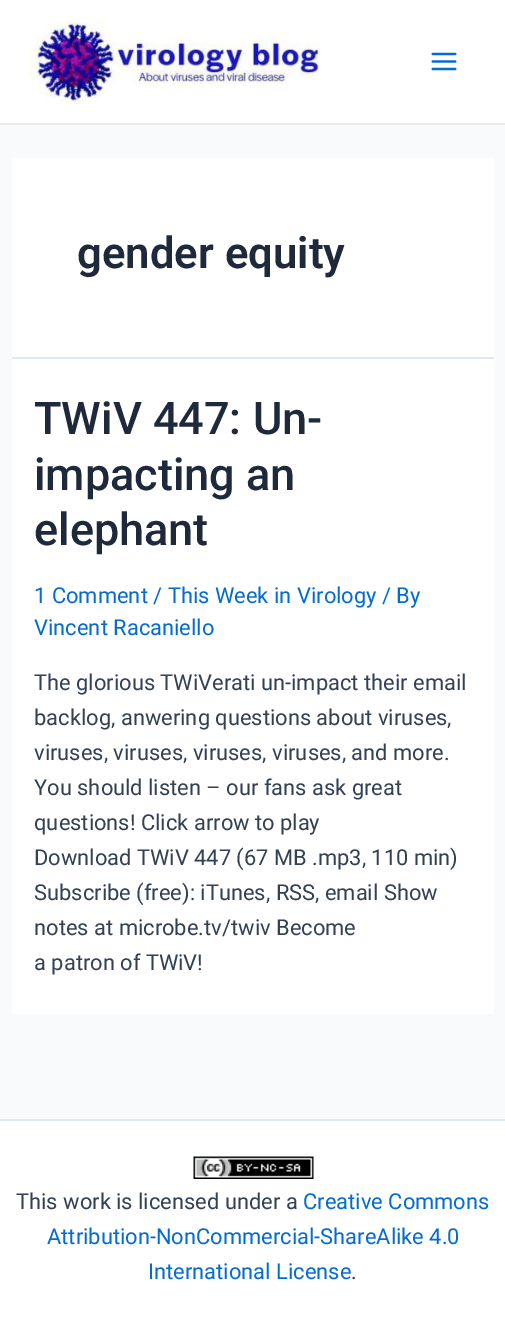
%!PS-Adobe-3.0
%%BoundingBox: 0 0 505 1335
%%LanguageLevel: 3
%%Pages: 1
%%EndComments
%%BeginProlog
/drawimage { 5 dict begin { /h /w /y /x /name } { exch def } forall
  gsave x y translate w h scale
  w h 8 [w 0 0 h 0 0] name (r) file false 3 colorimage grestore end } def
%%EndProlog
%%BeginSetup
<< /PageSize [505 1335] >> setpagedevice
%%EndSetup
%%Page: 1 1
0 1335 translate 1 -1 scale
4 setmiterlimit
0.976 0.98 0.984 setrgbcolor
0 0 505 1335 rectfill
1 setgray
0 0 505 123 rectfill
0.918 setgray
0 123 505 2 rectfill
(images/1.raw) 30 22 291 80 drawimage
(images/2.raw) 431 52 26 19 drawimage
1 setgray
12 158 482 199 rectfill
0.886 0.91 0.941 setrgbcolor
12 357 482 2 rectfill
1 setgray
12 359 482 655 rectfill
0 1121 505 214 rectfill
0.886 0.91 0.941 setrgbcolor
0 1119 505 2 rectfill
(images/3.raw) 193 1156 121 23 drawimage
/Roboto-SemiBold [43.75 0 0 -43.75 0 0] selectfont
0.118 0.161 0.231 setrgbcolor
77 268 moveto (gender equity) show
/Roboto-Medium [45 0 0 -45 0 0] selectfont
34 434 moveto (TWiV 447: Un-) show
34 490 moveto (impacting an) show
34 545 moveto (elephant) show
/Roboto-Regular [21.9 0 0 -21.9 0 0] selectfont
0.016 0.42 0.824 setrgbcolor
34 603 moveto (1 Comment / This Week in Virology / By) show
34 635 moveto (Vincent Racaniello) show
0.2 0.255 0.333 setrgbcolor
34 690 moveto (The glorious TWiVerati un-impact their email) show
34 725 moveto (backlog, anwering questions about viruses,) show
34 760 moveto (viruses, viruses, viruses, viruses, and more.) show
34 795 moveto (You should listen – our fans ask great) show
34 830 moveto (questions! Click arrow to play) show
34 865 moveto (Download TWiV 447 \(67 MB .mp3, 110 min\)) show
34 900 moveto (Subscribe \(free\): iTunes, RSS, email Show) show
34 935 moveto (notes at microbe.tv/twiv Become) show
34 970 moveto (a patron of TWiV!) show
16 1209 moveto (This work is licensed under a) show
0.016 0.42 0.824 setrgbcolor
303 1209 moveto (Creative Commons) show
47 1244 moveto (Attribution-NonCommercial-ShareAlike 4.0) show
148 1279 moveto (International License) show
0.2 0.255 0.333 setrgbcolor
351 1279 moveto (.) show
showpage
%%EOF
